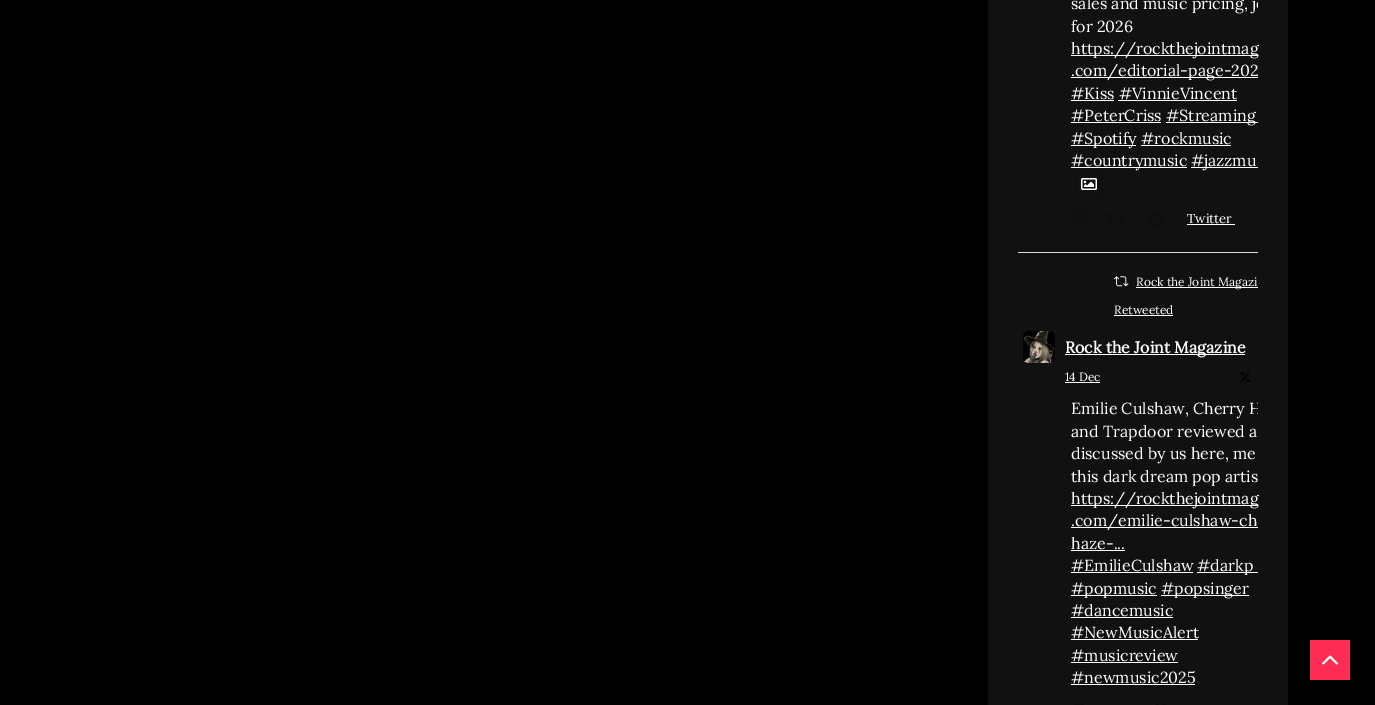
%!PS-Adobe-3.0
%%BoundingBox: 0 0 1375 705
%%LanguageLevel: 3
%%Pages: 1
%%EndComments
%%BeginProlog
/rrect { 5 dict begin { /r /h /w /y /x } { exch def } forall
  x r add y moveto x w add y 2 copy h add r arct x w add y h add x 1 index r arct
  x y h add x y r arct x y 2 copy exch w add exch r arct closepath end } def
/drawimage { 5 dict begin { /h /w /y /x /name } { exch def } forall
  gsave x y translate w h scale
  w h 8 [w 0 0 h 0 0] name (r) file false 3 colorimage grestore end } def
%%EndProlog
%%BeginSetup
<< /PageSize [1375 705] >> setpagedevice
%%EndSetup
%%Page: 1 1
0 705 translate 1 -1 scale
4 setmiterlimit
0 setgray
0 0 1375 705 rectfill
0.067 setgray
988 0 300 705 rectfill
0.867 setgray
1018 252 240 1 rectfill
1 setgray
1071 55 187 1 rectfill
1071 77 187 1 rectfill
1071 100 43 1 rectfill
1118 100 119 1 rectfill
1071 122 90 1 rectfill
1166 122 92 1 rectfill
1071 145 65 1 rectfill
1141 145 90 1 rectfill
1071 167 116 1 rectfill
1191 167 67 1 rectfill
0.055 setgray
1076.5 171.5 25 25 1.5 rrect stroke
(images/1.raw) 1081 178 16 12 drawimage
(images/2.raw) 1073 213 14 14 drawimage
(images/3.raw) 1107 214 17 12 drawimage
(images/4.raw) 1149 213 14 13 drawimage
1 setgray
1187 224 48 1 rectfill
(images/5.raw) 1114 276 15 11 drawimage
1136 287 122 1 rectfill
1114 315 59 1 rectfill
(images/6.raw) 1023 331 32 32 drawimage
1065 354 180 1 rectfill
1065 382 35 1 rectfill
(images/7.raw) 1240 372 10 10 drawimage
1071 505 187 1 rectfill
1071 527 187 1 rectfill
1071 550 54 1 rectfill
1071 572 122 1 rectfill
1197 572 61 1 rectfill
1071 595 86 1 rectfill
1161 595 88 1 rectfill
1071 617 102 1 rectfill
1071 639 127 1 rectfill
1071 662 107 1 rectfill
1071 684 124 1 rectfill
(images/8.raw) 1075 704 9 1 drawimage
(images/9.raw) 1156 704 10 1 drawimage
1 0.176 0.333 setrgbcolor
1310 640 40 40 rectfill
(images/10.raw) 1322 655 16 10 drawimage
gsave
1018 0 240 252 rectclip
/Lora-Regular [16 0 0 -16 0 0] selectfont
1 setgray
1071 9 moveto (sales and music pricing, jo) show
grestore
/Lora-Regular [16 0 0 -16 0 0] selectfont
1 setgray
1071 32 moveto (for 2026) show
1071 54 moveto (https://rockthejointmag) show
1071 76 moveto (.com/editorial-page-202) show
1071 99 moveto (#Kiss #VinnieVincent) show
1071 121 moveto (#PeterCriss) show
1166 121 moveto (#Streaming) show
1071 144 moveto (#Spotify #rockmusic) show
1071 166 moveto (#countrymusic) show
1191 166 moveto (#jazzmu) show
/Lora-Regular [13 0 0 -13 0 0] selectfont
1187 223 moveto (Twitter) show
/Lora-Regular [12 0 0 -12 0 0] selectfont
1136 286 moveto (Rock the Joint Magazi) show
1114 314 moveto (Retweeted) show
/Lora-Bold [16 0 0 -16 0 0] selectfont
1065 353 moveto (Rock the Joint Magazine) show
/Lora-Regular [12 0 0 -12 0 0] selectfont
1065 381 moveto (14 Dec) show
gsave
1018 253 240 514 rectclip
/Lora-Regular [16 0 0 -16 0 0] selectfont
1071 414 moveto (Emilie Culshaw, Cherry H) show
grestore
/Lora-Regular [16 0 0 -16 0 0] selectfont
1071 437 moveto (and Trapdoor reviewed a) show
1071 459 moveto (discussed by us here, me) show
1071 482 moveto (this dark dream pop artis) show
1071 504 moveto (https://rockthejointmag) show
1071 526 moveto (.com/emilie-culshaw-ch) show
1071 549 moveto (haze-...) show
1071 571 moveto (#EmilieCulshaw) show
1197 571 moveto (#darkp) show
1071 594 moveto (#popmusic) show
1161 594 moveto (#popsinger) show
1071 616 moveto (#dancemusic) show
1071 638 moveto (#NewMusicAlert) show
1071 661 moveto (#musicreview) show
1071 683 moveto (#newmusic2025) show
showpage
%%EOF
